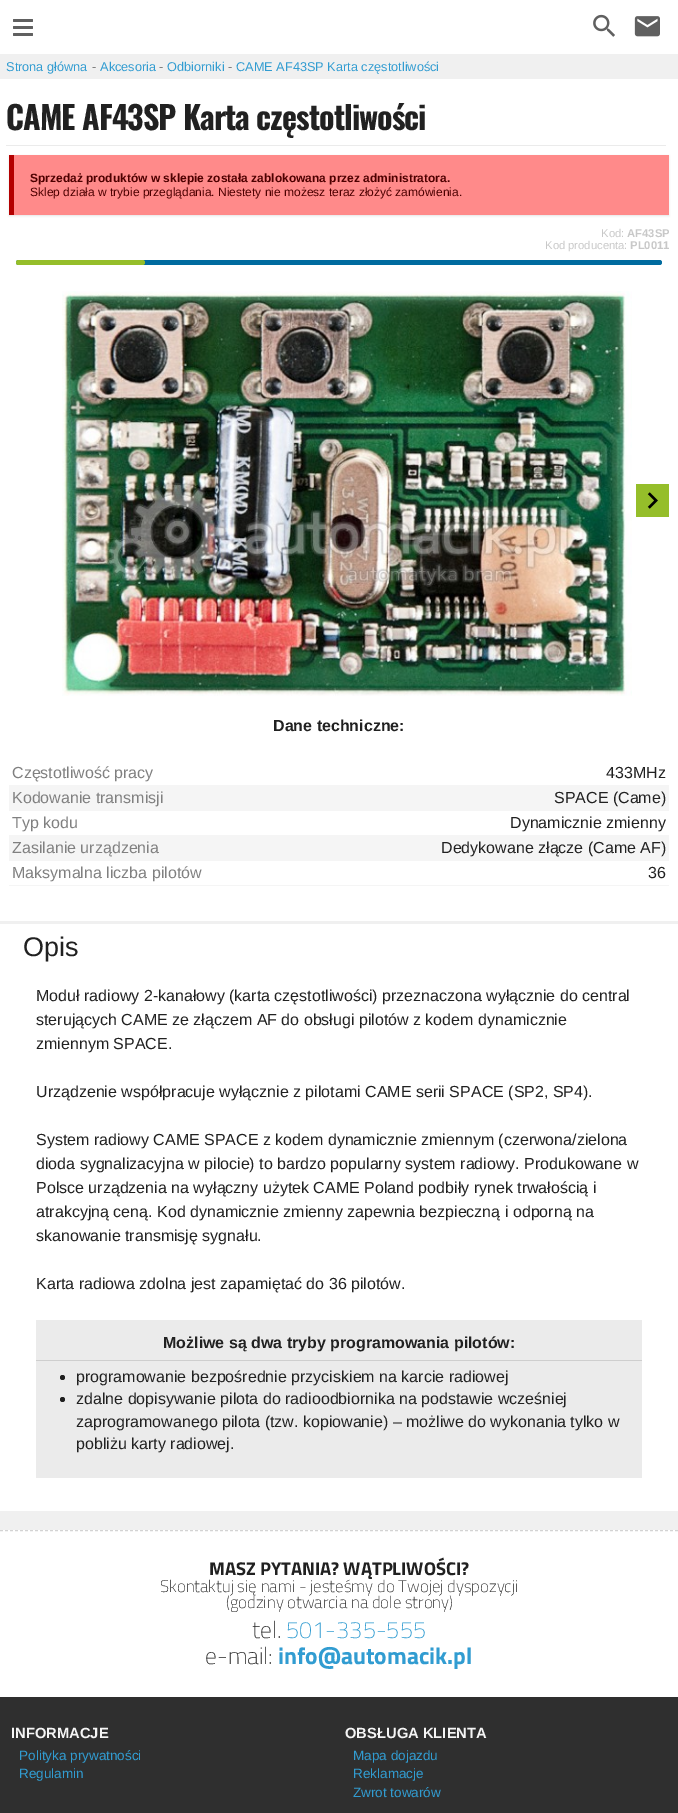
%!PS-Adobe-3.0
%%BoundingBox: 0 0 678 1813
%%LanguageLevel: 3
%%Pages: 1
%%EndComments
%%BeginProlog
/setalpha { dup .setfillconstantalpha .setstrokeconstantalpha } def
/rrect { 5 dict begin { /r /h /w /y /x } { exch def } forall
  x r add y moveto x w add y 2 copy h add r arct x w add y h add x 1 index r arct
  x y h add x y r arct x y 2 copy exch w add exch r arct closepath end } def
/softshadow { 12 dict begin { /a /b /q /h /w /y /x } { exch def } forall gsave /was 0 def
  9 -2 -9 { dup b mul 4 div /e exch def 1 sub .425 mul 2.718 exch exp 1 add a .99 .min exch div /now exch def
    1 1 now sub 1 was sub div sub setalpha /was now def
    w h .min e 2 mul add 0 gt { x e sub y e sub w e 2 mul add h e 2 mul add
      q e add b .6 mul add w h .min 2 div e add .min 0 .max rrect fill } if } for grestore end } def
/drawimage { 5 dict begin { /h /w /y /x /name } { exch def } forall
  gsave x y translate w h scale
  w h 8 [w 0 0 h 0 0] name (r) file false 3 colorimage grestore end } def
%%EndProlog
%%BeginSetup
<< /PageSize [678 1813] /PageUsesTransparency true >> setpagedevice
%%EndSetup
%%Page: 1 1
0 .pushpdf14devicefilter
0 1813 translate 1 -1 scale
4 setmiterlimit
0.941 setgray
0 0 678 1813 rectfill
1 setgray
0 0 678 54 rectfill
0.376 setgray
13 19 20 3 1 rrect fill
13 26 20 3 1 rrect fill
13 33 20 3 1 rrect fill
(images/1.raw) 593 14 22 23 drawimage
(images/2.raw) 634 16 26 21 drawimage
1 setgray
0 79 678 842 rectfill
0.922 setgray
6 145 660 1 rectfill
0 setgray
9 156 660 60 0 1 0.1 softshadow
1 0.541 0.541 setrgbcolor
14 155 655 60 rectfill
0.702 0 0 setrgbcolor
9 155 5 60 rectfill
0 0.42 0.624 setrgbcolor
16 260 646 5 2.5 rrect fill
0.584 0.745 0.165 setrgbcolor
16 260 129 5 2.5 rrect fill
(images/3.raw) 62 291 570 405 drawimage
636 484 33 33 rectfill
(images/4.raw) 647 492 11 17 drawimage
0.961 setgray
9 785 660 26 rectfill
9 835 660 26 rectfill
9 885 660 1 rectfill
1 setgray
0 924 678 587 rectfill
0.922 setgray
36 1320 606 40 rectfill
0.808 setgray
36 1360 606 1 rectfill
0.922 setgray
36 1361 606 117 rectfill
0.122 setgray
newpath 62.5 1377.5 2.5 0 360 arc closepath fill
newpath 62.5 1399.5 2.5 0 360 arc closepath fill
1 setgray
0 1530 678 167 rectfill
0.827 setgray
[3 2] 0 setdash
newpath 0 1530.5 moveto 678 1530.5 lineto stroke
0.184 setgray
0 1697 678 116 rectfill
/LiberationSans-Regular [12.75 0 0 -12.75 0 0] selectfont
0.192 0.612 0.82 setrgbcolor
6 71 moveto (Strona główna) show
0.502 setgray
92 71 moveto (-) show
0.192 0.612 0.82 setrgbcolor
100 71 moveto (Akcesoria) show
0.502 setgray
159 71 moveto (-) show
0.192 0.612 0.82 setrgbcolor
167 71 moveto (Odbiorniki) show
0.502 setgray
228 71 moveto (-) show
0.192 0.612 0.82 setrgbcolor
236 71 moveto (CAME AF43SP Karta częstotliwości) show
/Oswald-Bold [32 0 0 -32 0 0] selectfont
0.129 setgray
6 130 moveto -0.95 0 (CAME AF43SP Karta częstotliwości) ashow
/LiberationSans-Bold [12 0 0 -12 0 0] selectfont
0.302 0 0 setrgbcolor
30 182 moveto (Sprzedaż produktów w sklepie została zablokowana przez administratora.) show
/LiberationSans-Regular [12 0 0 -12 0 0] selectfont
30 196 moveto (Sklep działa w trybie przeglądania. Niestety nie możesz teraz złożyć zamówienia.) show
/LiberationSans-Regular [11.25 0 0 -11.25 0 0] selectfont
0.784 setgray
601 237 moveto (Kod:) show
/LiberationSans-Bold [11.25 0 0 -11.25 0 0] selectfont
627 237 moveto (AF43SP) show
/LiberationSans-Regular [11.25 0 0 -11.25 0 0] selectfont
545 249 moveto (Kod producenta:) show
/LiberationSans-Bold [11.25 0 0 -11.25 0 0] selectfont
630 249 moveto (PL0011) show
/LiberationSans-Bold [16 0 0 -16 0 0] selectfont
0.129 setgray
273 731 moveto (Dane techniczne:) show
/LiberationSans-Regular [16 0 0 -16 0 0] selectfont
0.502 setgray
12 778 moveto (Częstotliwość pracy) show
0.129 setgray
606 778 moveto (433MHz) show
0.502 setgray
12 803 moveto (Kodowanie transmisji) show
0.129 setgray
554 803 moveto (SPACE \(Came\)) show
0.502 setgray
12 828 moveto (Typ kodu) show
0.129 setgray
510 828 moveto (Dynamicznie zmienny) show
0.502 setgray
12 853 moveto (Zasilanie urządzenia) show
0.129 setgray
441 853 moveto (Dedykowane złącze \(Came AF\)) show
0.502 setgray
12 878 moveto (Maksymalna liczba pilotów) show
0.129 setgray
648 878 moveto (36) show
/LiberationSans-Regular [27 0 0 -27 0 0] selectfont
23 956 moveto (Opis) show
/LiberationSans-Regular [16 0 0 -16 0 0] selectfont
36 1001 moveto (Moduł radiowy 2-kanałowy \(karta częstotliwości\) przeznaczona wyłącznie do central) show
36 1025 moveto (sterujących CAME ze złączem AF do obsługi pilotów z kodem dynamicznie) show
36 1049 moveto (zmiennym SPACE.) show
36 1097 moveto (Urządzenie współpracuje wyłącznie z pilotami CAME serii SPACE \(SP2, SP4\).) show
36 1145 moveto (System radiowy CAME SPACE z kodem dynamicznie zmiennym \(czerwona/zielona) show
36 1169 moveto (dioda sygnalizacyjna w pilocie\) to bardzo popularny system radiowy. Produkowane w) show
36 1193 moveto (Polsce urządzenia na wyłączny użytek CAME Poland podbiły rynek trwałością i) show
36 1217 moveto (atrakcyjną ceną. Kod dynamicznie zmienny zapewnia bezpieczną i odporną na) show
36 1241 moveto (skanowanie transmisję sygnału.) show
36 1289 moveto (Karta radiowa zdolna jest zapamiętać do 36 pilotów.) show
/LiberationSans-Bold [16 0 0 -16 0 0] selectfont
163 1348 moveto (Możliwe są dwa tryby programowania pilotów:) show
/LiberationSans-Regular [16 0 0 -16 0 0] selectfont
76 1382 moveto (programowanie bezpośrednie przyciskiem na karcie radiowej) show
76 1404 moveto (zdalne dopisywanie pilota do radioodbiornika na podstawie wcześniej) show
76 1427 moveto (zaprogramowanego pilota \(tzw. kopiowanie\) – możliwe do wykonania tylko w) show
76 1449 moveto (pobliżu karty radiowej.) show
/TitilliumWeb-Bold [18.5 0 0 -18.5 0 0] selectfont
209 1575 moveto (MASZ PYTANIA? WĄTPLIWOŚCI?) show
/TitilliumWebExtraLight-ExtraLight [16.8 0 0 -16.8 0 0] selectfont
160 1592 moveto (Skontaktuj się nami - jesteśmy do Twojej dyspozycji) show
226 1608 moveto (\(godziny otwarcia na dole strony\)) show
/TitilliumWebExtraLight-ExtraLight [23.5 0 0 -23.5 0 0] selectfont
252 1638 moveto (tel.) show
0.192 0.612 0.82 setrgbcolor
286 1638 moveto (501-335-555) show
0.129 setgray
205 1664 moveto (e-mail:) show
/TitilliumWeb-Bold [23.5 0 0 -23.5 0 0] selectfont
0.192 0.612 0.82 setrgbcolor
278 1664 moveto (info@automacik.pl) show
/LiberationSans-Bold [14.75 0 0 -14.75 0 0] selectfont
0.961 setgray
11 1738 moveto (INFORMACJE) show
/LiberationSans-Regular [13.5 0 0 -13.5 0 0] selectfont
0.192 0.612 0.82 setrgbcolor
19 1760 moveto (Polityka prywatności) show
19 1778 moveto (Regulamin) show
/LiberationSans-Bold [14.75 0 0 -14.75 0 0] selectfont
0.961 setgray
345 1738 moveto (OBSŁUGA KLIENTA) show
/LiberationSans-Regular [13.5 0 0 -13.5 0 0] selectfont
0.192 0.612 0.82 setrgbcolor
353 1760 moveto (Mapa dojazdu) show
353 1778 moveto (Reklamacje) show
353 1797 moveto (Zwrot towarów) show
.poppdf14devicefilter showpage
%%EOF
